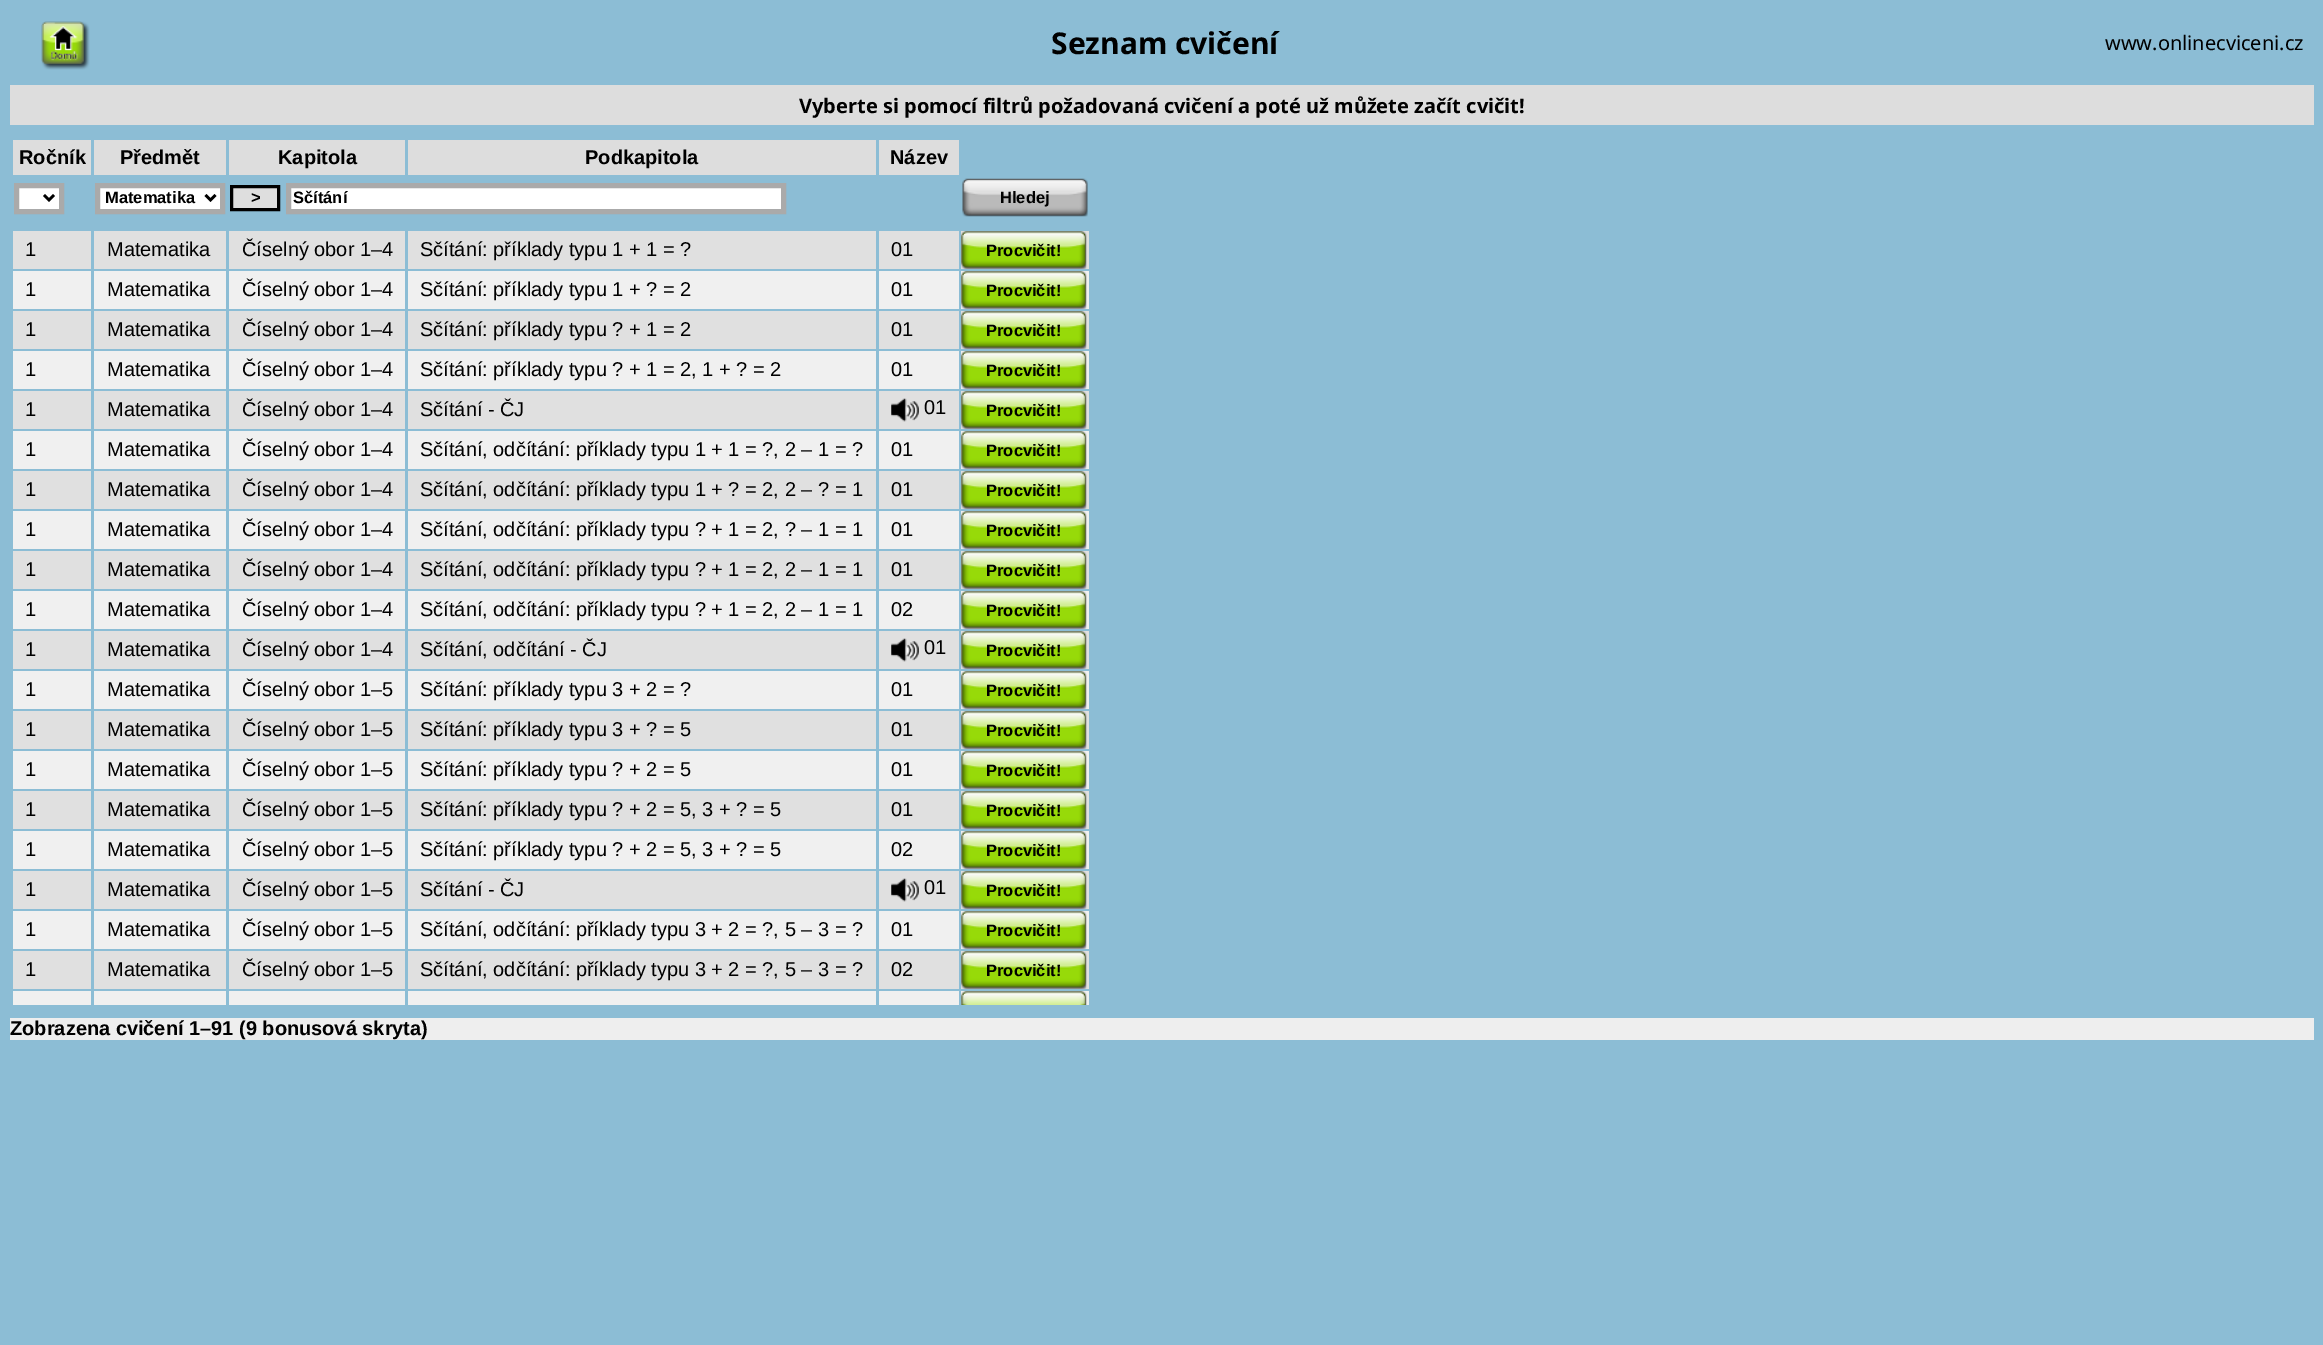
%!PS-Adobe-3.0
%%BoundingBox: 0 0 2323 1345
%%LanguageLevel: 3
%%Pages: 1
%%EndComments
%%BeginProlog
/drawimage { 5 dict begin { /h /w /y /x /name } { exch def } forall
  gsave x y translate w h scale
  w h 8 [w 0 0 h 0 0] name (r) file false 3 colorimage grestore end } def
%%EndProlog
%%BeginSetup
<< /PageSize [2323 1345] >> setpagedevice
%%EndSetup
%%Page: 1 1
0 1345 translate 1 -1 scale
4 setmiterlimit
0.549 0.741 0.835 setrgbcolor
0 0 2323 1345 rectfill
(images/1.raw) 41 21 49 49 drawimage
0.867 setgray
10 85 2304 40 rectfill
13 140 78 35 rectfill
94 140 132 35 rectfill
229 140 176 35 rectfill
408 140 468 35 rectfill
879 140 80 35 rectfill
1 setgray
newpath 16.5 185.5 moveto 61.5 185.5 lineto 61.5 211.5 lineto 16.5 211.5 lineto closepath gsave fill grestore
0.667 setgray
5 setlinewidth
stroke
0 setgray
2.5 setlinewidth
newpath 44 195 moveto 49 200 lineto 54 195 lineto stroke
1 setgray
newpath 97.5 185.5 moveto 222.5 185.5 lineto 222.5 211.5 lineto 97.5 211.5 lineto closepath gsave fill grestore
0.667 setgray
5 setlinewidth
stroke
0 setgray
2.5 setlinewidth
newpath 205.5 195 moveto 210.5 200 lineto 215.5 195 lineto stroke
0.871 setgray
newpath 231.5 186.5 moveto 278.5 186.5 lineto 278.5 209.5 lineto 231.5 209.5 lineto closepath gsave fill grestore
0 setgray
3 setlinewidth
stroke
1 setgray
newpath 288.5 185.5 moveto 783.5 185.5 lineto 783.5 211.5 lineto 288.5 211.5 lineto closepath gsave fill grestore
0.667 setgray
5 setlinewidth
stroke
(images/2.raw) 962 178 126 39 drawimage
0.878 setgray
13 231 78 38 rectfill
94 231 132 38 rectfill
229 231 176 38 rectfill
408 231 468 38 rectfill
879 231 80 38 rectfill
961 231 128 38 rectfill
(images/3.raw) 961 231 126 38 drawimage
0.941 setgray
13 271 78 38 rectfill
94 271 132 38 rectfill
229 271 176 38 rectfill
408 271 468 38 rectfill
879 271 80 38 rectfill
961 271 128 38 rectfill
(images/4.raw) 961 271 126 38 drawimage
0.878 setgray
13 311 78 38 rectfill
94 311 132 38 rectfill
229 311 176 38 rectfill
408 311 468 38 rectfill
879 311 80 38 rectfill
961 311 128 38 rectfill
(images/3.raw) 961 311 126 38 drawimage
0.941 setgray
13 351 78 38 rectfill
94 351 132 38 rectfill
229 351 176 38 rectfill
408 351 468 38 rectfill
879 351 80 38 rectfill
961 351 128 38 rectfill
(images/4.raw) 961 351 126 38 drawimage
0.878 setgray
13 391 78 38 rectfill
94 391 132 38 rectfill
229 391 176 38 rectfill
408 391 468 38 rectfill
879 391 80 38 rectfill
(images/5.raw) 891 398 28 24 drawimage
961 391 128 38 rectfill
(images/3.raw) 961 391 126 38 drawimage
0.941 setgray
13 431 78 38 rectfill
94 431 132 38 rectfill
229 431 176 38 rectfill
408 431 468 38 rectfill
879 431 80 38 rectfill
961 431 128 38 rectfill
(images/4.raw) 961 431 126 38 drawimage
0.878 setgray
13 471 78 38 rectfill
94 471 132 38 rectfill
229 471 176 38 rectfill
408 471 468 38 rectfill
879 471 80 38 rectfill
961 471 128 38 rectfill
(images/3.raw) 961 471 126 38 drawimage
0.941 setgray
13 511 78 38 rectfill
94 511 132 38 rectfill
229 511 176 38 rectfill
408 511 468 38 rectfill
879 511 80 38 rectfill
961 511 128 38 rectfill
(images/4.raw) 961 511 126 38 drawimage
0.878 setgray
13 551 78 38 rectfill
94 551 132 38 rectfill
229 551 176 38 rectfill
408 551 468 38 rectfill
879 551 80 38 rectfill
961 551 128 38 rectfill
(images/3.raw) 961 551 126 38 drawimage
0.941 setgray
13 591 78 38 rectfill
94 591 132 38 rectfill
229 591 176 38 rectfill
408 591 468 38 rectfill
879 591 80 38 rectfill
961 591 128 38 rectfill
(images/4.raw) 961 591 126 38 drawimage
0.878 setgray
13 631 78 38 rectfill
94 631 132 38 rectfill
229 631 176 38 rectfill
408 631 468 38 rectfill
879 631 80 38 rectfill
(images/5.raw) 891 638 28 24 drawimage
961 631 128 38 rectfill
(images/3.raw) 961 631 126 38 drawimage
0.941 setgray
13 671 78 38 rectfill
94 671 132 38 rectfill
229 671 176 38 rectfill
408 671 468 38 rectfill
879 671 80 38 rectfill
961 671 128 38 rectfill
(images/4.raw) 961 671 126 38 drawimage
0.878 setgray
13 711 78 38 rectfill
94 711 132 38 rectfill
229 711 176 38 rectfill
408 711 468 38 rectfill
879 711 80 38 rectfill
961 711 128 38 rectfill
(images/3.raw) 961 711 126 38 drawimage
0.941 setgray
13 751 78 38 rectfill
94 751 132 38 rectfill
229 751 176 38 rectfill
408 751 468 38 rectfill
879 751 80 38 rectfill
961 751 128 38 rectfill
(images/4.raw) 961 751 126 38 drawimage
0.878 setgray
13 791 78 38 rectfill
94 791 132 38 rectfill
229 791 176 38 rectfill
408 791 468 38 rectfill
879 791 80 38 rectfill
961 791 128 38 rectfill
(images/3.raw) 961 791 126 38 drawimage
0.941 setgray
13 831 78 38 rectfill
94 831 132 38 rectfill
229 831 176 38 rectfill
408 831 468 38 rectfill
879 831 80 38 rectfill
961 831 128 38 rectfill
(images/4.raw) 961 831 126 38 drawimage
0.878 setgray
13 871 78 38 rectfill
94 871 132 38 rectfill
229 871 176 38 rectfill
408 871 468 38 rectfill
879 871 80 38 rectfill
(images/5.raw) 891 878 28 24 drawimage
961 871 128 38 rectfill
(images/3.raw) 961 871 126 38 drawimage
0.941 setgray
13 911 78 38 rectfill
94 911 132 38 rectfill
229 911 176 38 rectfill
408 911 468 38 rectfill
879 911 80 38 rectfill
961 911 128 38 rectfill
(images/4.raw) 961 911 126 38 drawimage
0.878 setgray
13 951 78 38 rectfill
94 951 132 38 rectfill
229 951 176 38 rectfill
408 951 468 38 rectfill
879 951 80 38 rectfill
961 951 128 38 rectfill
(images/3.raw) 961 951 126 38 drawimage
0.941 setgray
13 991 78 14 rectfill
94 991 132 14 rectfill
229 991 176 14 rectfill
408 991 468 14 rectfill
879 991 80 14 rectfill
961 991 128 14 rectfill
(images/6.raw) 961 991 126 14 drawimage
0.933 setgray
10 1018 2304 22 rectfill
/NotoSans-Bold [30 0 0 -30 0 0] selectfont
0 setgray
1051 54 moveto (Seznam cvičení) show
/NotoSans-Regular [20 0 0 -20 0 0] selectfont
2105 50 moveto (www.onlinecviceni.cz) show
/NotoSans-Bold [20 0 0 -20 0 0] selectfont
799 113 moveto (Vyberte si pomocí filtrů požadovaná cvičení a poté už můžete začít cvičit!) show
/LiberationSans-Bold [20 0 0 -20 0 0] selectfont
19 164 moveto (Ročník) show
120 164 moveto (Předmět) show
278 164 moveto (Kapitola) show
585 164 moveto (Podkapitola) show
890 164 moveto (Název) show
/LiberationSans-Bold [16.5 0 0 -16.5 0 0] selectfont
105 203 moveto (Matematika) show
251 203 moveto (>) show
293 203 moveto (Sčítání) show
1000 203 moveto (Hledej) show
/LiberationSans-Regular [20 0 0 -20 0 0] selectfont
25 256 moveto (1) show
107 256 moveto (Matematika) show
242 256 moveto (Číselný obor 1–4) show
420 256 moveto (Sčítání: příklady typu 1 + 1 = ?) show
891 256 moveto (01) show
/LiberationSans-Bold [16.5 0 0 -16.5 0 0] selectfont
986 256 moveto (Procvičit!) show
/LiberationSans-Regular [20 0 0 -20 0 0] selectfont
25 296 moveto (1) show
107 296 moveto (Matematika) show
242 296 moveto (Číselný obor 1–4) show
420 296 moveto (Sčítání: příklady typu 1 + ? = 2) show
891 296 moveto (01) show
/LiberationSans-Bold [16.5 0 0 -16.5 0 0] selectfont
986 296 moveto (Procvičit!) show
/LiberationSans-Regular [20 0 0 -20 0 0] selectfont
25 336 moveto (1) show
107 336 moveto (Matematika) show
242 336 moveto (Číselný obor 1–4) show
420 336 moveto (Sčítání: příklady typu ? + 1 = 2) show
891 336 moveto (01) show
/LiberationSans-Bold [16.5 0 0 -16.5 0 0] selectfont
986 336 moveto (Procvičit!) show
/LiberationSans-Regular [20 0 0 -20 0 0] selectfont
25 376 moveto (1) show
107 376 moveto (Matematika) show
242 376 moveto (Číselný obor 1–4) show
420 376 moveto (Sčítání: příklady typu ? + 1 = 2, 1 + ? = 2) show
891 376 moveto (01) show
/LiberationSans-Bold [16.5 0 0 -16.5 0 0] selectfont
986 376 moveto (Procvičit!) show
/LiberationSans-Regular [20 0 0 -20 0 0] selectfont
25 416 moveto (1) show
107 416 moveto (Matematika) show
242 416 moveto (Číselný obor 1–4) show
420 416 moveto (Sčítání - ČJ) show
924 414 moveto (01) show
/LiberationSans-Bold [16.5 0 0 -16.5 0 0] selectfont
986 416 moveto (Procvičit!) show
/LiberationSans-Regular [20 0 0 -20 0 0] selectfont
25 456 moveto (1) show
107 456 moveto (Matematika) show
242 456 moveto (Číselný obor 1–4) show
420 456 moveto (Sčítání, odčítání: příklady typu 1 + 1 = ?, 2 – 1 = ?) show
891 456 moveto (01) show
/LiberationSans-Bold [16.5 0 0 -16.5 0 0] selectfont
986 456 moveto (Procvičit!) show
/LiberationSans-Regular [20 0 0 -20 0 0] selectfont
25 496 moveto (1) show
107 496 moveto (Matematika) show
242 496 moveto (Číselný obor 1–4) show
420 496 moveto (Sčítání, odčítání: příklady typu 1 + ? = 2, 2 – ? = 1) show
891 496 moveto (01) show
/LiberationSans-Bold [16.5 0 0 -16.5 0 0] selectfont
986 496 moveto (Procvičit!) show
/LiberationSans-Regular [20 0 0 -20 0 0] selectfont
25 536 moveto (1) show
107 536 moveto (Matematika) show
242 536 moveto (Číselný obor 1–4) show
420 536 moveto (Sčítání, odčítání: příklady typu ? + 1 = 2, ? – 1 = 1) show
891 536 moveto (01) show
/LiberationSans-Bold [16.5 0 0 -16.5 0 0] selectfont
986 536 moveto (Procvičit!) show
/LiberationSans-Regular [20 0 0 -20 0 0] selectfont
25 576 moveto (1) show
107 576 moveto (Matematika) show
242 576 moveto (Číselný obor 1–4) show
420 576 moveto (Sčítání, odčítání: příklady typu ? + 1 = 2, 2 – 1 = 1) show
891 576 moveto (01) show
/LiberationSans-Bold [16.5 0 0 -16.5 0 0] selectfont
986 576 moveto (Procvičit!) show
/LiberationSans-Regular [20 0 0 -20 0 0] selectfont
25 616 moveto (1) show
107 616 moveto (Matematika) show
242 616 moveto (Číselný obor 1–4) show
420 616 moveto (Sčítání, odčítání: příklady typu ? + 1 = 2, 2 – 1 = 1) show
891 616 moveto (02) show
/LiberationSans-Bold [16.5 0 0 -16.5 0 0] selectfont
986 616 moveto (Procvičit!) show
/LiberationSans-Regular [20 0 0 -20 0 0] selectfont
25 656 moveto (1) show
107 656 moveto (Matematika) show
242 656 moveto (Číselný obor 1–4) show
420 656 moveto (Sčítání, odčítání - ČJ) show
924 654 moveto (01) show
/LiberationSans-Bold [16.5 0 0 -16.5 0 0] selectfont
986 656 moveto (Procvičit!) show
/LiberationSans-Regular [20 0 0 -20 0 0] selectfont
25 696 moveto (1) show
107 696 moveto (Matematika) show
242 696 moveto (Číselný obor 1–5) show
420 696 moveto (Sčítání: příklady typu 3 + 2 = ?) show
891 696 moveto (01) show
/LiberationSans-Bold [16.5 0 0 -16.5 0 0] selectfont
986 696 moveto (Procvičit!) show
/LiberationSans-Regular [20 0 0 -20 0 0] selectfont
25 736 moveto (1) show
107 736 moveto (Matematika) show
242 736 moveto (Číselný obor 1–5) show
420 736 moveto (Sčítání: příklady typu 3 + ? = 5) show
891 736 moveto (01) show
/LiberationSans-Bold [16.5 0 0 -16.5 0 0] selectfont
986 736 moveto (Procvičit!) show
/LiberationSans-Regular [20 0 0 -20 0 0] selectfont
25 776 moveto (1) show
107 776 moveto (Matematika) show
242 776 moveto (Číselný obor 1–5) show
420 776 moveto (Sčítání: příklady typu ? + 2 = 5) show
891 776 moveto (01) show
/LiberationSans-Bold [16.5 0 0 -16.5 0 0] selectfont
986 776 moveto (Procvičit!) show
/LiberationSans-Regular [20 0 0 -20 0 0] selectfont
25 816 moveto (1) show
107 816 moveto (Matematika) show
242 816 moveto (Číselný obor 1–5) show
420 816 moveto (Sčítání: příklady typu ? + 2 = 5, 3 + ? = 5) show
891 816 moveto (01) show
/LiberationSans-Bold [16.5 0 0 -16.5 0 0] selectfont
986 816 moveto (Procvičit!) show
/LiberationSans-Regular [20 0 0 -20 0 0] selectfont
25 856 moveto (1) show
107 856 moveto (Matematika) show
242 856 moveto (Číselný obor 1–5) show
420 856 moveto (Sčítání: příklady typu ? + 2 = 5, 3 + ? = 5) show
891 856 moveto (02) show
/LiberationSans-Bold [16.5 0 0 -16.5 0 0] selectfont
986 856 moveto (Procvičit!) show
/LiberationSans-Regular [20 0 0 -20 0 0] selectfont
25 896 moveto (1) show
107 896 moveto (Matematika) show
242 896 moveto (Číselný obor 1–5) show
420 896 moveto (Sčítání - ČJ) show
924 894 moveto (01) show
/LiberationSans-Bold [16.5 0 0 -16.5 0 0] selectfont
986 896 moveto (Procvičit!) show
/LiberationSans-Regular [20 0 0 -20 0 0] selectfont
25 936 moveto (1) show
107 936 moveto (Matematika) show
242 936 moveto (Číselný obor 1–5) show
420 936 moveto (Sčítání, odčítání: příklady typu 3 + 2 = ?, 5 – 3 = ?) show
891 936 moveto (01) show
/LiberationSans-Bold [16.5 0 0 -16.5 0 0] selectfont
986 936 moveto (Procvičit!) show
/LiberationSans-Regular [20 0 0 -20 0 0] selectfont
25 976 moveto (1) show
107 976 moveto (Matematika) show
242 976 moveto (Číselný obor 1–5) show
420 976 moveto (Sčítání, odčítání: příklady typu 3 + 2 = ?, 5 – 3 = ?) show
891 976 moveto (02) show
/LiberationSans-Bold [16.5 0 0 -16.5 0 0] selectfont
986 976 moveto (Procvičit!) show
/LiberationSans-Bold [20 0 0 -20 0 0] selectfont
10 1035 moveto (Zobrazena cvičení 1–91 \(9 bonusová skryta\)) show
showpage
%%EOF
